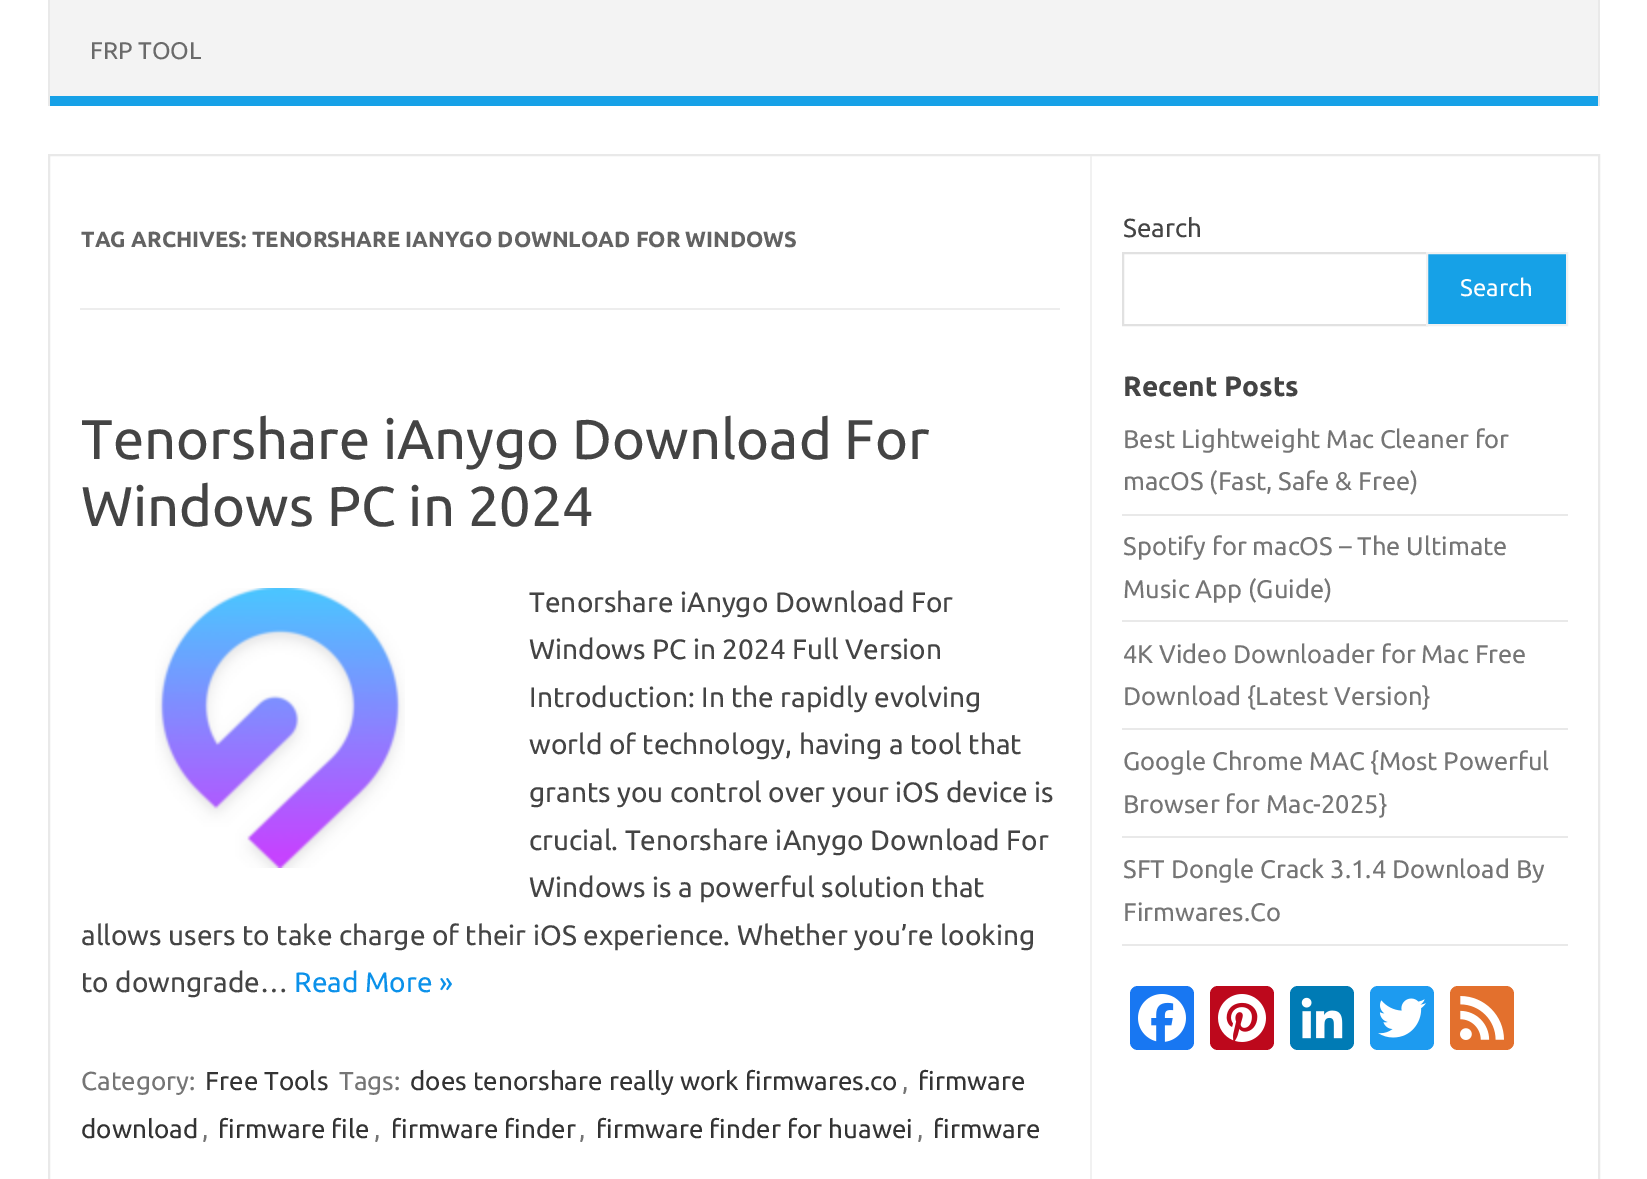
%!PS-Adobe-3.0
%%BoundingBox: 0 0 1647 1179
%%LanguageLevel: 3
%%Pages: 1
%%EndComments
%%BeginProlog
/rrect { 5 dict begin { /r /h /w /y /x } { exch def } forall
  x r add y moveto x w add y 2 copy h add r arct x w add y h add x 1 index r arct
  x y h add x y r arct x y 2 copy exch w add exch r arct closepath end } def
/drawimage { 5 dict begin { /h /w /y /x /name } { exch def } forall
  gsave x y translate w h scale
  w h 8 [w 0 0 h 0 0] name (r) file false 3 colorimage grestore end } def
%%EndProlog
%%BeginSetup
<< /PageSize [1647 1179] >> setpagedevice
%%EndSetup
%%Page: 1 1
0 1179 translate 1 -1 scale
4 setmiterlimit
1 setgray
0 0 1647 1179 rectfill
0.914 setgray
1598 0 2 106 rectfill
48 0 2 106 rectfill
0.953 setgray
50 0 1548 96 rectfill
0.086 0.631 0.906 setrgbcolor
50 96 1548 10 rectfill
0.914 setgray
2 setlinewidth
49 155 1550 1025 rectstroke
0.945 setgray
1090 156 2 1023 rectfill
0.929 setgray
80 308 980 2 rectfill
(images/1.raw) 155 588 250 280 drawimage
0.882 setgray
1123 253 304 72 rectstroke
0.086 0.631 0.906 setrgbcolor
newpath 1427 253 moveto 1567 253 lineto 1567 325 lineto 1427 325 lineto closepath gsave fill grestore
0.945 setgray
stroke
0.914 setgray
1122 514 446 2 rectfill
1122 620 446 2 rectfill
1122 728 446 2 rectfill
1122 836 446 2 rectfill
1122 944 446 2 rectfill
0.094 0.467 0.949 setrgbcolor
1130 986 64 64 8 rrect fill
(images/2.raw) 1138 994 48 48 drawimage
0.741 0.031 0.11 setrgbcolor
1210 986 64 64 8 rrect fill
(images/3.raw) 1218 994 48 48 drawimage
0 0.482 0.71 setrgbcolor
1290 986 64 64 8 rrect fill
(images/4.raw) 1301 997 42 42 drawimage
0.114 0.608 0.941 setrgbcolor
1370 986 64 64 8 rrect fill
(images/5.raw) 1378 998 48 40 drawimage
0.89 0.439 0.176 setrgbcolor
1450 986 64 64 8 rrect fill
(images/6.raw) 1460 996 44 44 drawimage
/Ubuntu-Regular [24 0 0 -24 0 0] selectfont
0.416 setgray
90 59 moveto (FRP TOOL) show
/Ubuntu-Bold [22 0 0 -22 0 0] selectfont
0.388 setgray
81 247 moveto (TAG ARCHIVES: TENORSHARE IANYGO DOWNLOAD FOR WINDOWS) show
/Ubuntu-Regular [56 0 0 -56 0 0] selectfont
0.267 setgray
81 459 moveto (Tenorshare iAnygo Download For) show
81 526 moveto (Windows PC in 2024) show
/Ubuntu-Regular [28 0 0 -28 0 0] selectfont
529 612 moveto (Tenorshare iAnygo Download For) show
529 659 moveto (Windows PC in 2024 Full Version) show
529 707 moveto (Introduction: In the rapidly evolving) show
529 754 moveto (world of technology, having a tool that) show
529 802 moveto (grants you control over your iOS device is) show
529 850 moveto (crucial. Tenorshare iAnygo Download For) show
529 897 moveto (Windows is a powerful solution that) show
81 945 moveto (allows users to take charge of their iOS experience. Whether you’re looking) show
81 992 moveto (to downgrade…) show
0.043 0.569 0.918 setrgbcolor
294 992 moveto (Read More ») show
/Ubuntu-Regular [26 0 0 -26 0 0] selectfont
0.459 setgray
81 1090 moveto (Category:) show
0.2 setgray
205 1090 moveto (Free Tools) show
0.459 setgray
339 1090 moveto (Tags:) show
0.2 setgray
410 1090 moveto (does tenorshare really work firmwares.co) show
0.459 setgray
902 1090 moveto (,) show
0.2 setgray
918 1090 moveto (firmware) show
81 1138 moveto (download) show
0.459 setgray
202 1138 moveto (,) show
0.2 setgray
218 1138 moveto (firmware file) show
0.459 setgray
374 1138 moveto (,) show
0.2 setgray
391 1138 moveto (firmware finder) show
0.459 setgray
579 1138 moveto (,) show
0.2 setgray
596 1138 moveto (firmware finder for huawei) show
0.459 setgray
917 1138 moveto (,) show
0.2 setgray
933 1138 moveto (firmware) show
0.267 setgray
1123 237 moveto (Search) show
/Ubuntu-Regular [24 0 0 -24 0 0] selectfont
1 setgray
1460 296 moveto (Search) show
/Ubuntu-Bold [28 0 0 -28 0 0] selectfont
0.267 setgray
1123 396 moveto (Recent Posts) show
/Ubuntu-Regular [25.5 0 0 -25.5 0 0] selectfont
0.459 setgray
1123 448 moveto (Best Lightweight Mac Cleaner for) show
1123 490 moveto (macOS \(Fast, Safe & Free\)) show
1123 555 moveto (Spotify for macOS – The Ultimate) show
1123 598 moveto (Music App \(Guide\)) show
1123 663 moveto (4K Video Downloader for Mac Free) show
1123 705 moveto (Download {Latest Version}) show
1123 770 moveto (Google Chrome MAC {Most Powerful) show
1123 813 moveto (Browser for Mac-2025}) show
1123 878 moveto (SFT Dongle Crack 3.1.4 Download By) show
1123 921 moveto (Firmwares.Co) show
showpage
%%EOF
